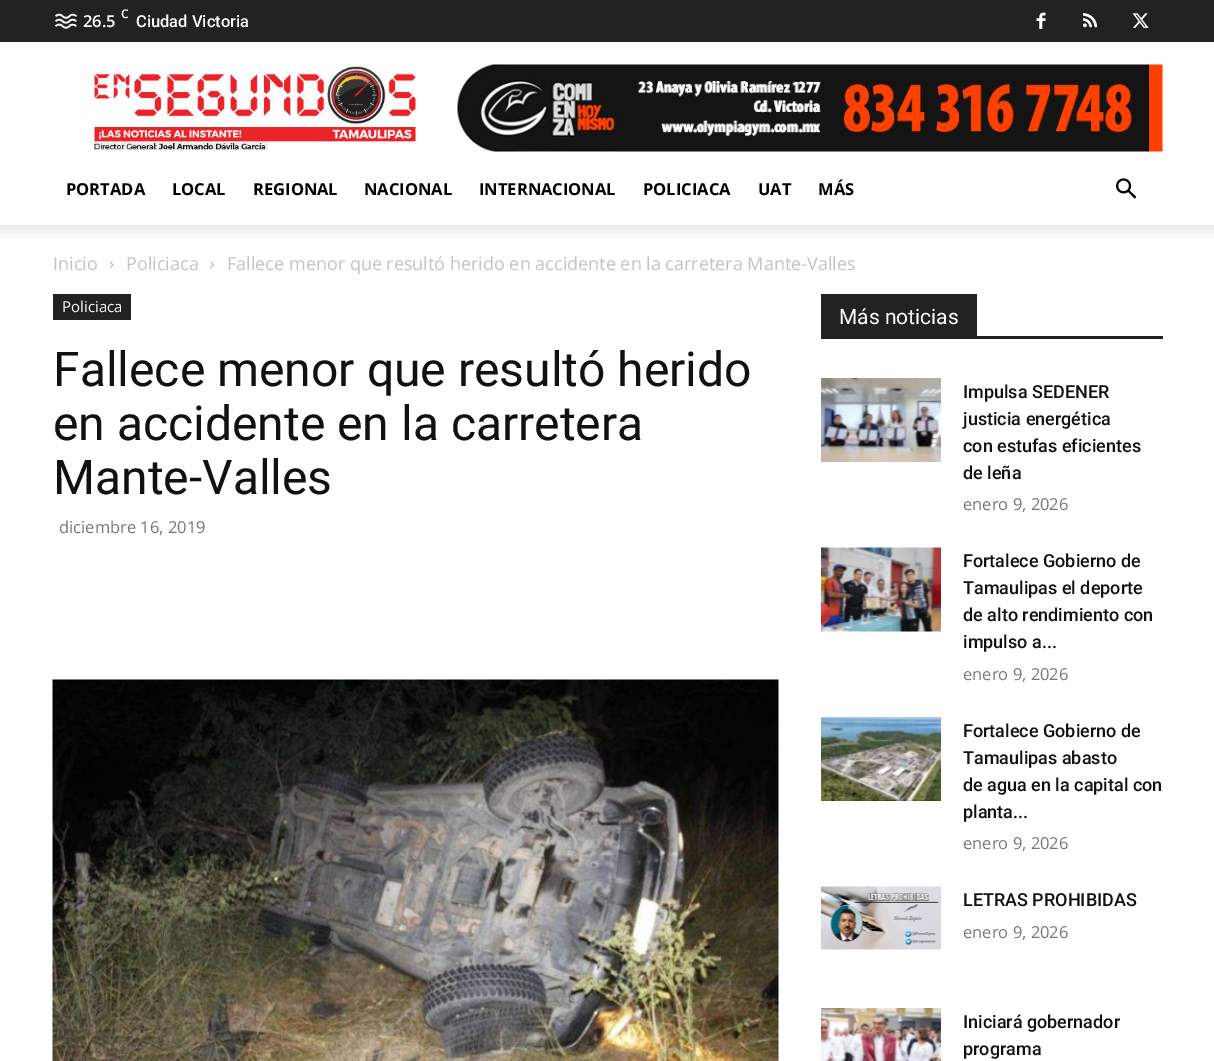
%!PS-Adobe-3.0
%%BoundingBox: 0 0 1214 1061
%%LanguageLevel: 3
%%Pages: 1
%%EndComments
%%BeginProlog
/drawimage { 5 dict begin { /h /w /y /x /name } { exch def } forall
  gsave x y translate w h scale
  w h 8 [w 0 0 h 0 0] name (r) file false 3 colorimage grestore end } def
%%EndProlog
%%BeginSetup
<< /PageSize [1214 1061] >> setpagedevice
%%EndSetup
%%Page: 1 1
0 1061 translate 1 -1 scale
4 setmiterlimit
1 setgray
0 0 1214 1061 rectfill
0.133 setgray
0 0 1214 42 rectfill
(images/1.raw) 54 13 23 16 drawimage
(images/2.raw) 1036 12 10 17 drawimage
(images/3.raw) 1083 13 15 15 drawimage
(images/4.raw) 1132 13 17 15 drawimage
(images/5.raw) 94 66 322 84 drawimage
(images/6.raw) 457 64 706 88 drawimage
(images/7.raw) 1116 178 20 21 drawimage
(images/8.raw) 0 225 1214 13 drawimage
(images/9.raw) 109 261 5 8 drawimage
(images/10.raw) 210 261 4 8 drawimage
53 294 78 26 rectfill
(images/11.raw) 52 679 727 382 drawimage
821 336 342 3 rectfill
821 294 156 42 rectfill
(images/12.raw) 821 378 120 84 drawimage
(images/13.raw) 821 547 120 85 drawimage
(images/14.raw) 821 717 120 84 drawimage
(images/15.raw) 821 886 120 64 drawimage
(images/16.raw) 821 1008 120 53 drawimage
/OpenSans-SemiBold [12 0 0 -12 0 0] selectfont
1 setgray
121 18 moveto (C) show
/OpenSans-SemiBold [16.5 0 0 -16.5 0 0] selectfont
83 27 moveto (26.5) show
/Roboto-Medium [16.5 0 0 -16.5 0 0] selectfont
136 27 moveto (Ciudad Victoria) show
/OpenSans-Bold [16.5 0 0 -16.5 0 0] selectfont
0 setgray
66 195 moveto (PORTADA) show
172 195 moveto (LOCAL) show
253 195 moveto (REGIONAL) show
364 195 moveto (NACIONAL) show
479 195 moveto (INTERNACIONAL) show
643 195 moveto (POLICIACA) show
758 195 moveto (UAT) show
818 195 moveto (MÁS) show
/OpenSans-Regular [18 0 0 -18 0 0] selectfont
0.765 setgray
53 270 moveto (Inicio) show
126 270 moveto (Policiaca) show
227 270 moveto (Fallece menor que resultó herido en accidente en la carretera Mante-Valles) show
/OpenSans-Regular [15 0 0 -15 0 0] selectfont
1 setgray
62 312 moveto (Policiaca) show
/Roboto-Regular [48 0 0 -48 0 0] selectfont
0.067 setgray
53 386 moveto (Fallece menor que resultó herido) show
53 440 moveto (en accidente en la carretera) show
53 494 moveto (Mante-Valles) show
/OpenSans-Regular [16.5 0 0 -16.5 0 0] selectfont
0.463 setgray
59 533 moveto (diciembre 16, 2019) show
/Roboto-Regular [21 0 0 -21 0 0] selectfont
1 setgray
839 324 moveto (Más noticias) show
/Roboto-Medium [18 0 0 -18 0 0] selectfont
0.067 setgray
963 398 moveto (Impulsa SEDENER) show
963 425 moveto (justicia energética) show
963 452 moveto (con estufas eficientes) show
963 479 moveto (de leña) show
/OpenSans-Regular [16.5 0 0 -16.5 0 0] selectfont
0.463 setgray
963 510 moveto (enero 9, 2026) show
/Roboto-Medium [18 0 0 -18 0 0] selectfont
0.067 setgray
963 567 moveto (Fortalece Gobierno de) show
963 594 moveto (Tamaulipas el deporte) show
963 621 moveto (de alto rendimiento con) show
963 648 moveto (impulso a...) show
/OpenSans-Regular [16.5 0 0 -16.5 0 0] selectfont
0.463 setgray
963 680 moveto (enero 9, 2026) show
/Roboto-Medium [18 0 0 -18 0 0] selectfont
0.067 setgray
963 737 moveto (Fortalece Gobierno de) show
963 764 moveto (Tamaulipas abasto) show
963 791 moveto (de agua en la capital con) show
963 818 moveto (planta...) show
/OpenSans-Regular [16.5 0 0 -16.5 0 0] selectfont
0.463 setgray
963 849 moveto (enero 9, 2026) show
/Roboto-Medium [18 0 0 -18 0 0] selectfont
0.067 setgray
963 906 moveto (LETRAS PROHIBIDAS) show
/OpenSans-Regular [16.5 0 0 -16.5 0 0] selectfont
0.463 setgray
963 938 moveto (enero 9, 2026) show
/Roboto-Medium [18 0 0 -18 0 0] selectfont
0.067 setgray
963 1028 moveto (Iniciará gobernador) show
963 1055 moveto (programa) show
showpage
%%EOF
